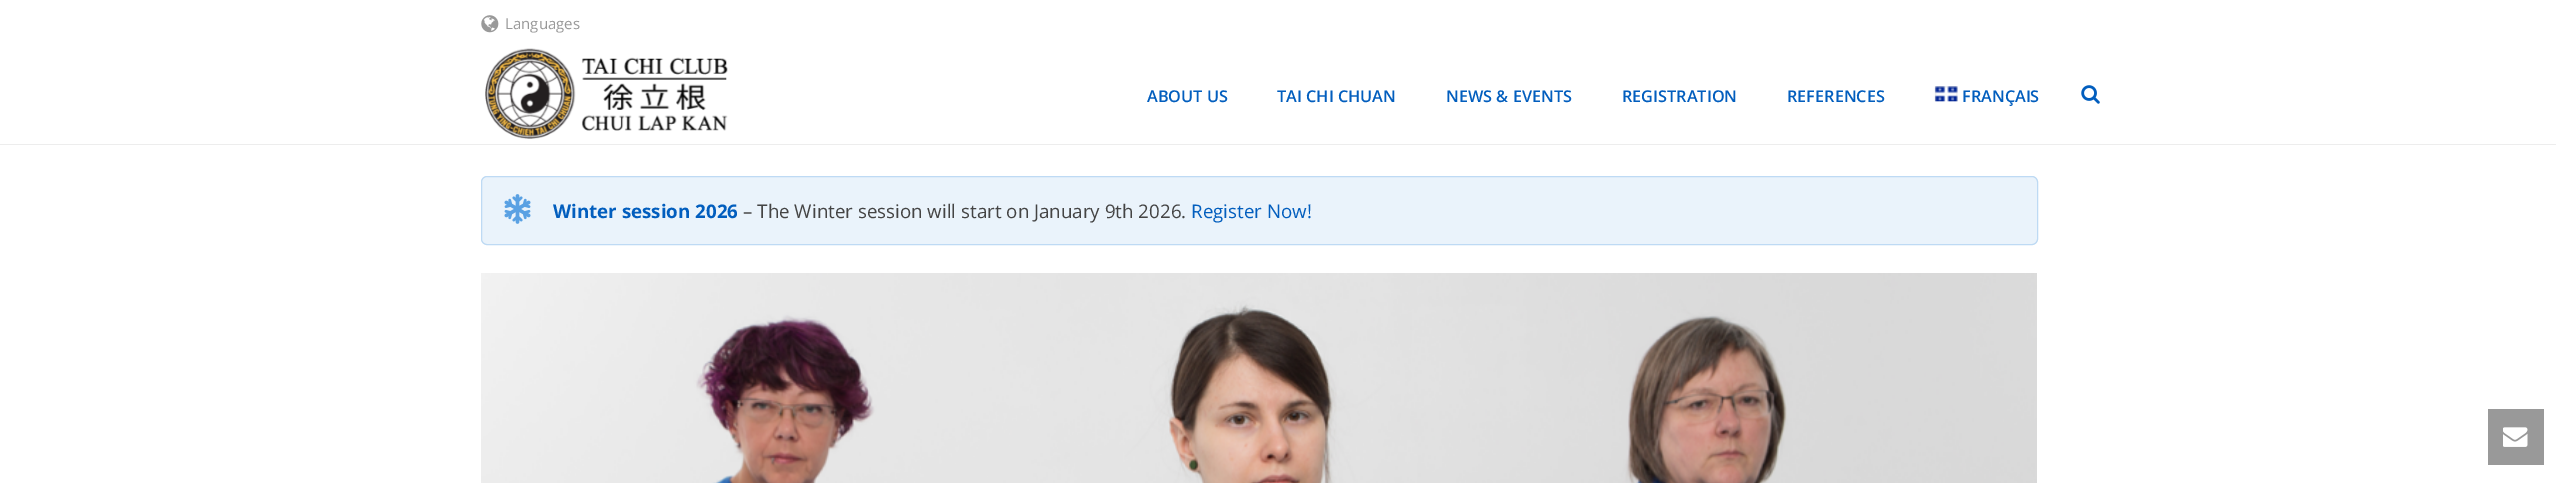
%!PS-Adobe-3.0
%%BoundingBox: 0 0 2556 483
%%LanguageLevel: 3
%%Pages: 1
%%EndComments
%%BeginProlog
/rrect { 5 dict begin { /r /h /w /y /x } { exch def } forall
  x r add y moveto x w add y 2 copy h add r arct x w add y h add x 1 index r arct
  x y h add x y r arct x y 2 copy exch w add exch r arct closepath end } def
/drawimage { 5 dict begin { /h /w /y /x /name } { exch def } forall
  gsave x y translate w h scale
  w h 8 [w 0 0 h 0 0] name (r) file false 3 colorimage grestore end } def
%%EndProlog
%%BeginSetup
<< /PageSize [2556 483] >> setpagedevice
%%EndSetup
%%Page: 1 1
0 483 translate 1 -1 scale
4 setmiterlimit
1 setgray
0 0 2556 483 rectfill
(images/1.raw) 481 15 18 18 drawimage
0.929 setgray
0 144 2556 1 rectfill
(images/2.raw) 485 48 243 91 drawimage
(images/3.raw) 1934 86 24 16 drawimage
(images/4.raw) 2081 85 19 19 drawimage
0.918 0.953 0.984 setrgbcolor
481.5 176.5 1556 68 5.5 rrect gsave fill grestore
0.745 0.855 0.957 setrgbcolor
stroke
(images/5.raw) 504 194 27 30 drawimage
(images/6.raw) 481 273 1556 210 drawimage
0.6 setgray
2488 409 56 56 rectfill
(images/7.raw) 2503 427 25 20 drawimage
/OpenSans-Regular [15 0 0 -15 0 0] selectfont
505 29 moveto (Languages) show
/OpenSans-SemiBold [16.25 0 0 -16.25 0 0] selectfont
0.008 0.369 0.745 setrgbcolor
1147 102 moveto (ABOUT US) show
1277 102 moveto (TAI CHI CHUAN) show
1446 102 moveto (NEWS & EVENTS) show
1622 102 moveto (REGISTRATION) show
1787 102 moveto (REFERENCES) show
1962 102 moveto (FRANÇAIS) show
/OpenSans-Bold [18.75 0 0 -18.75 0 0] selectfont
553 218 moveto (Winter session 2026) show
/OpenSans-Regular [18.75 0 0 -18.75 0 0] selectfont
0.267 setgray
743 218 moveto (– The Winter session will start on January 9th 2026.) show
0.008 0.369 0.745 setrgbcolor
1191 218 moveto (Register Now!) show
showpage
%%EOF
